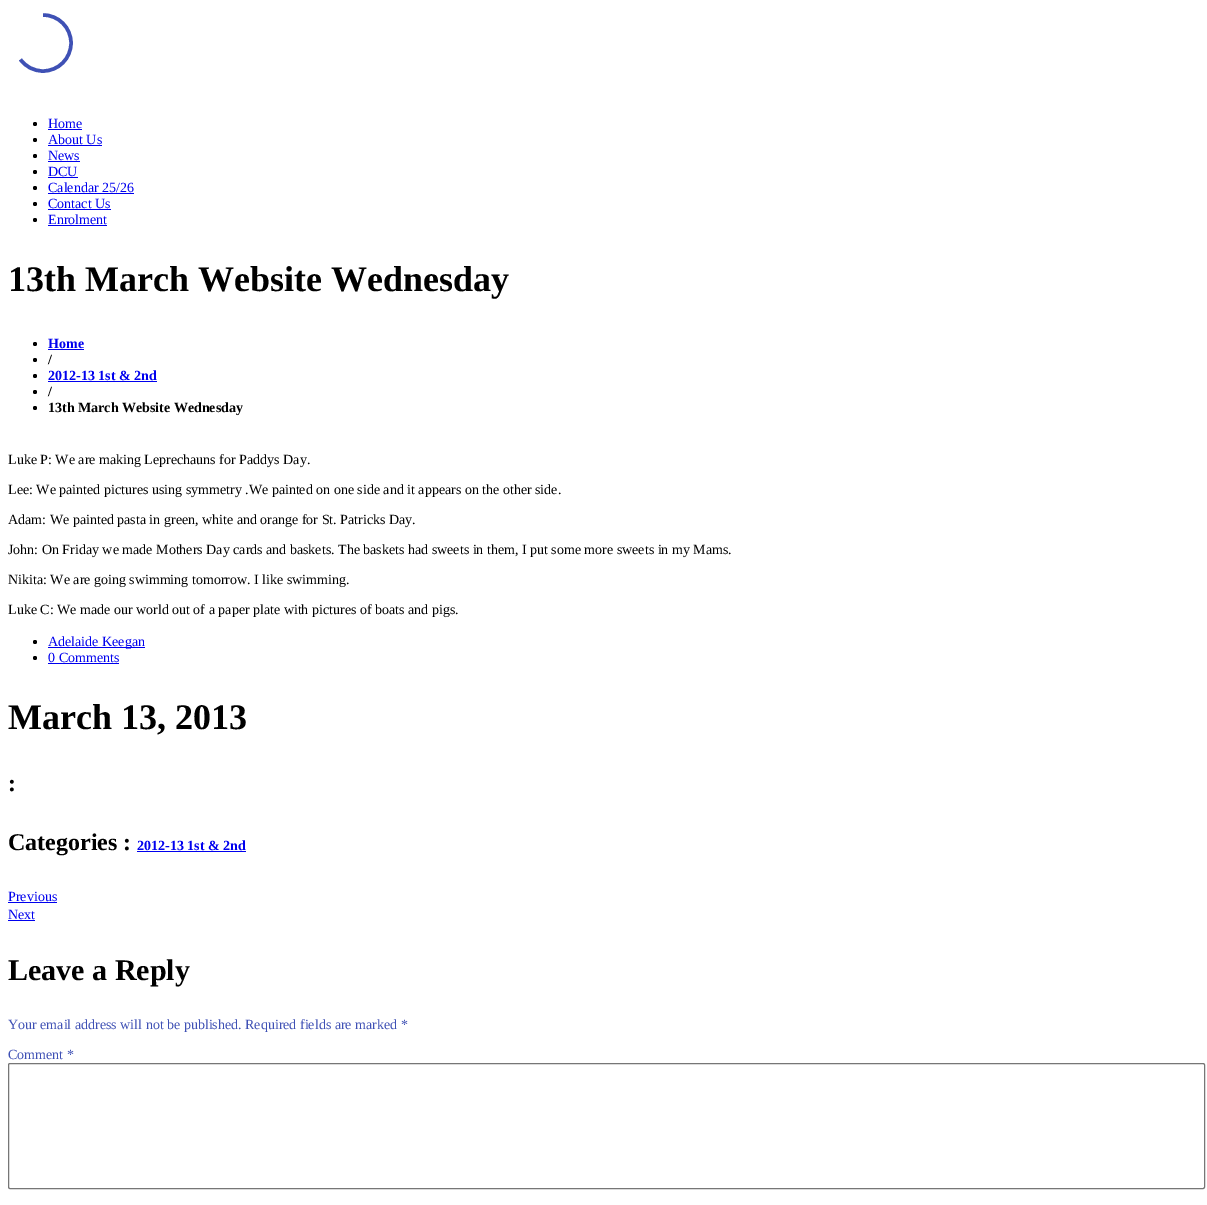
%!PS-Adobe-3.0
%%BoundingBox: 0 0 1207 1205
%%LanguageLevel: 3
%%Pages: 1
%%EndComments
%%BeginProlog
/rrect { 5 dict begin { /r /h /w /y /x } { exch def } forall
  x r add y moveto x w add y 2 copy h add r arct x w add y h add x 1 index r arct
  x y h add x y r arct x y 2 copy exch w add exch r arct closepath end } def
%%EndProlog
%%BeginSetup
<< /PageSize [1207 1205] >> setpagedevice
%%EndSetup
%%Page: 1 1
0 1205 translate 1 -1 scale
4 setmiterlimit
1 setgray
0 0 1207 1205 rectfill
0.247 0.318 0.71 setrgbcolor
3.5 setlinewidth
newpath 43 15 moveto 58.5 15 71 27.5 71 43 curveto 71 58.5 58.5 71 43 71 curveto 33.5 71 25.5 66.5 20.5 59.5 curveto stroke
0 setgray
newpath 35 124 2 0 360 arc closepath fill
0 0 0.933 setrgbcolor
48 129 34 1 rectfill
0 setgray
newpath 35 140 2 0 360 arc closepath fill
0 0 0.933 setrgbcolor
48 145 54 1 rectfill
0 setgray
newpath 35 156 2 0 360 arc closepath fill
0 0 0.933 setrgbcolor
48 161 32 1 rectfill
0 setgray
newpath 35 172 2 0 360 arc closepath fill
0 0 0.933 setrgbcolor
48 177 30 1 rectfill
0 setgray
newpath 35 188 2 0 360 arc closepath fill
0 0 0.933 setrgbcolor
48 193 86 1 rectfill
0 setgray
newpath 35 204 2 0 360 arc closepath fill
0 0 0.933 setrgbcolor
48 209 63 1 rectfill
0 setgray
newpath 35 220 2 0 360 arc closepath fill
0 0 0.933 setrgbcolor
48 225 59 1 rectfill
0 setgray
newpath 35 344 2 0 360 arc closepath fill
0 0 0.933 setrgbcolor
48 349 36 1 rectfill
0 setgray
newpath 35 360 2 0 360 arc closepath fill
newpath 35 376 2 0 360 arc closepath fill
0 0 0.933 setrgbcolor
48 381 109 1 rectfill
0 setgray
newpath 35 392 2 0 360 arc closepath fill
newpath 35 408 2 0 360 arc closepath fill
newpath 35 642 2 0 360 arc closepath fill
0 0 0.933 setrgbcolor
48 647 97 1 rectfill
0 setgray
newpath 35 658 2 0 360 arc closepath fill
0 0 0.933 setrgbcolor
48 663 71 1 rectfill
137 851 109 1 rectfill
8 902 49 1 rectfill
8 920 27 1 rectfill
0.463 setgray
1 setlinewidth
8.5 1063.5 1196 125 1.5 rrect stroke
/LiberationSerif-Regular [14 0 0 -14 0 0] selectfont
0 0 0.933 setrgbcolor
48 128 moveto (Home) show
48 144 moveto (About Us) show
48 160 moveto (News) show
48 176 moveto (DCU) show
48 192 moveto (Calendar 25/26) show
48 208 moveto (Contact Us) show
48 224 moveto (Enrolment) show
/LiberationSerif-Bold [36 0 0 -36 0 0] selectfont
0 setgray
8 291 moveto (13th March Website Wednesday) show
/LiberationSerif-Bold [14 0 0 -14 0 0] selectfont
0 0 0.933 setrgbcolor
48 348 moveto (Home) show
0 setgray
48 364 moveto (/) show
0 0 0.933 setrgbcolor
48 380 moveto (2012-13 1st & 2nd) show
0 setgray
48 396 moveto (/) show
48 412 moveto (13th March Website Wednesday) show
/LiberationSerif-Regular [14 0 0 -14 0 0] selectfont
8 464 moveto (Luke P: We are making Leprechauns for Paddys Day.) show
8 494 moveto (Lee: We painted pictures using symmetry .We painted on one side and it appears on the other side.) show
8 524 moveto (Adam: We painted pasta in green, white and orange for St. Patricks Day.) show
8 554 moveto (John: On Friday we made Mothers Day cards and baskets. The baskets had sweets in them, I put some more sweets in my Mams.) show
8 584 moveto (Nikita: We are going swimming tomorrow. I like swimming.) show
8 614 moveto (Luke C: We made our world out of a paper plate with pictures of boats and pigs.) show
0 0 0.933 setrgbcolor
48 646 moveto (Adelaide Keegan) show
48 662 moveto (0 Comments) show
/LiberationSerif-Bold [36 0 0 -36 0 0] selectfont
0 setgray
8 729 moveto (March 13, 2013) show
/LiberationSerif-Bold [24 0 0 -24 0 0] selectfont
8 791 moveto (:) show
8 850 moveto (Categories :) show
/LiberationSerif-Bold [14 0 0 -14 0 0] selectfont
0 0 0.933 setrgbcolor
137 850 moveto (2012-13 1st & 2nd) show
/LiberationSerif-Regular [14 0 0 -14 0 0] selectfont
8 901 moveto (Previous) show
8 919 moveto (Next) show
/LiberationSerif-Bold [30 0 0 -30 0 0] selectfont
0 setgray
8 980 moveto (Leave a Reply) show
/LiberationSerif-Regular [14 0 0 -14 0 0] selectfont
0.247 0.318 0.71 setrgbcolor
8 1029 moveto (Your email address will not be published. Required fields are marked *) show
8 1059 moveto (Comment *) show
showpage
%%EOF
